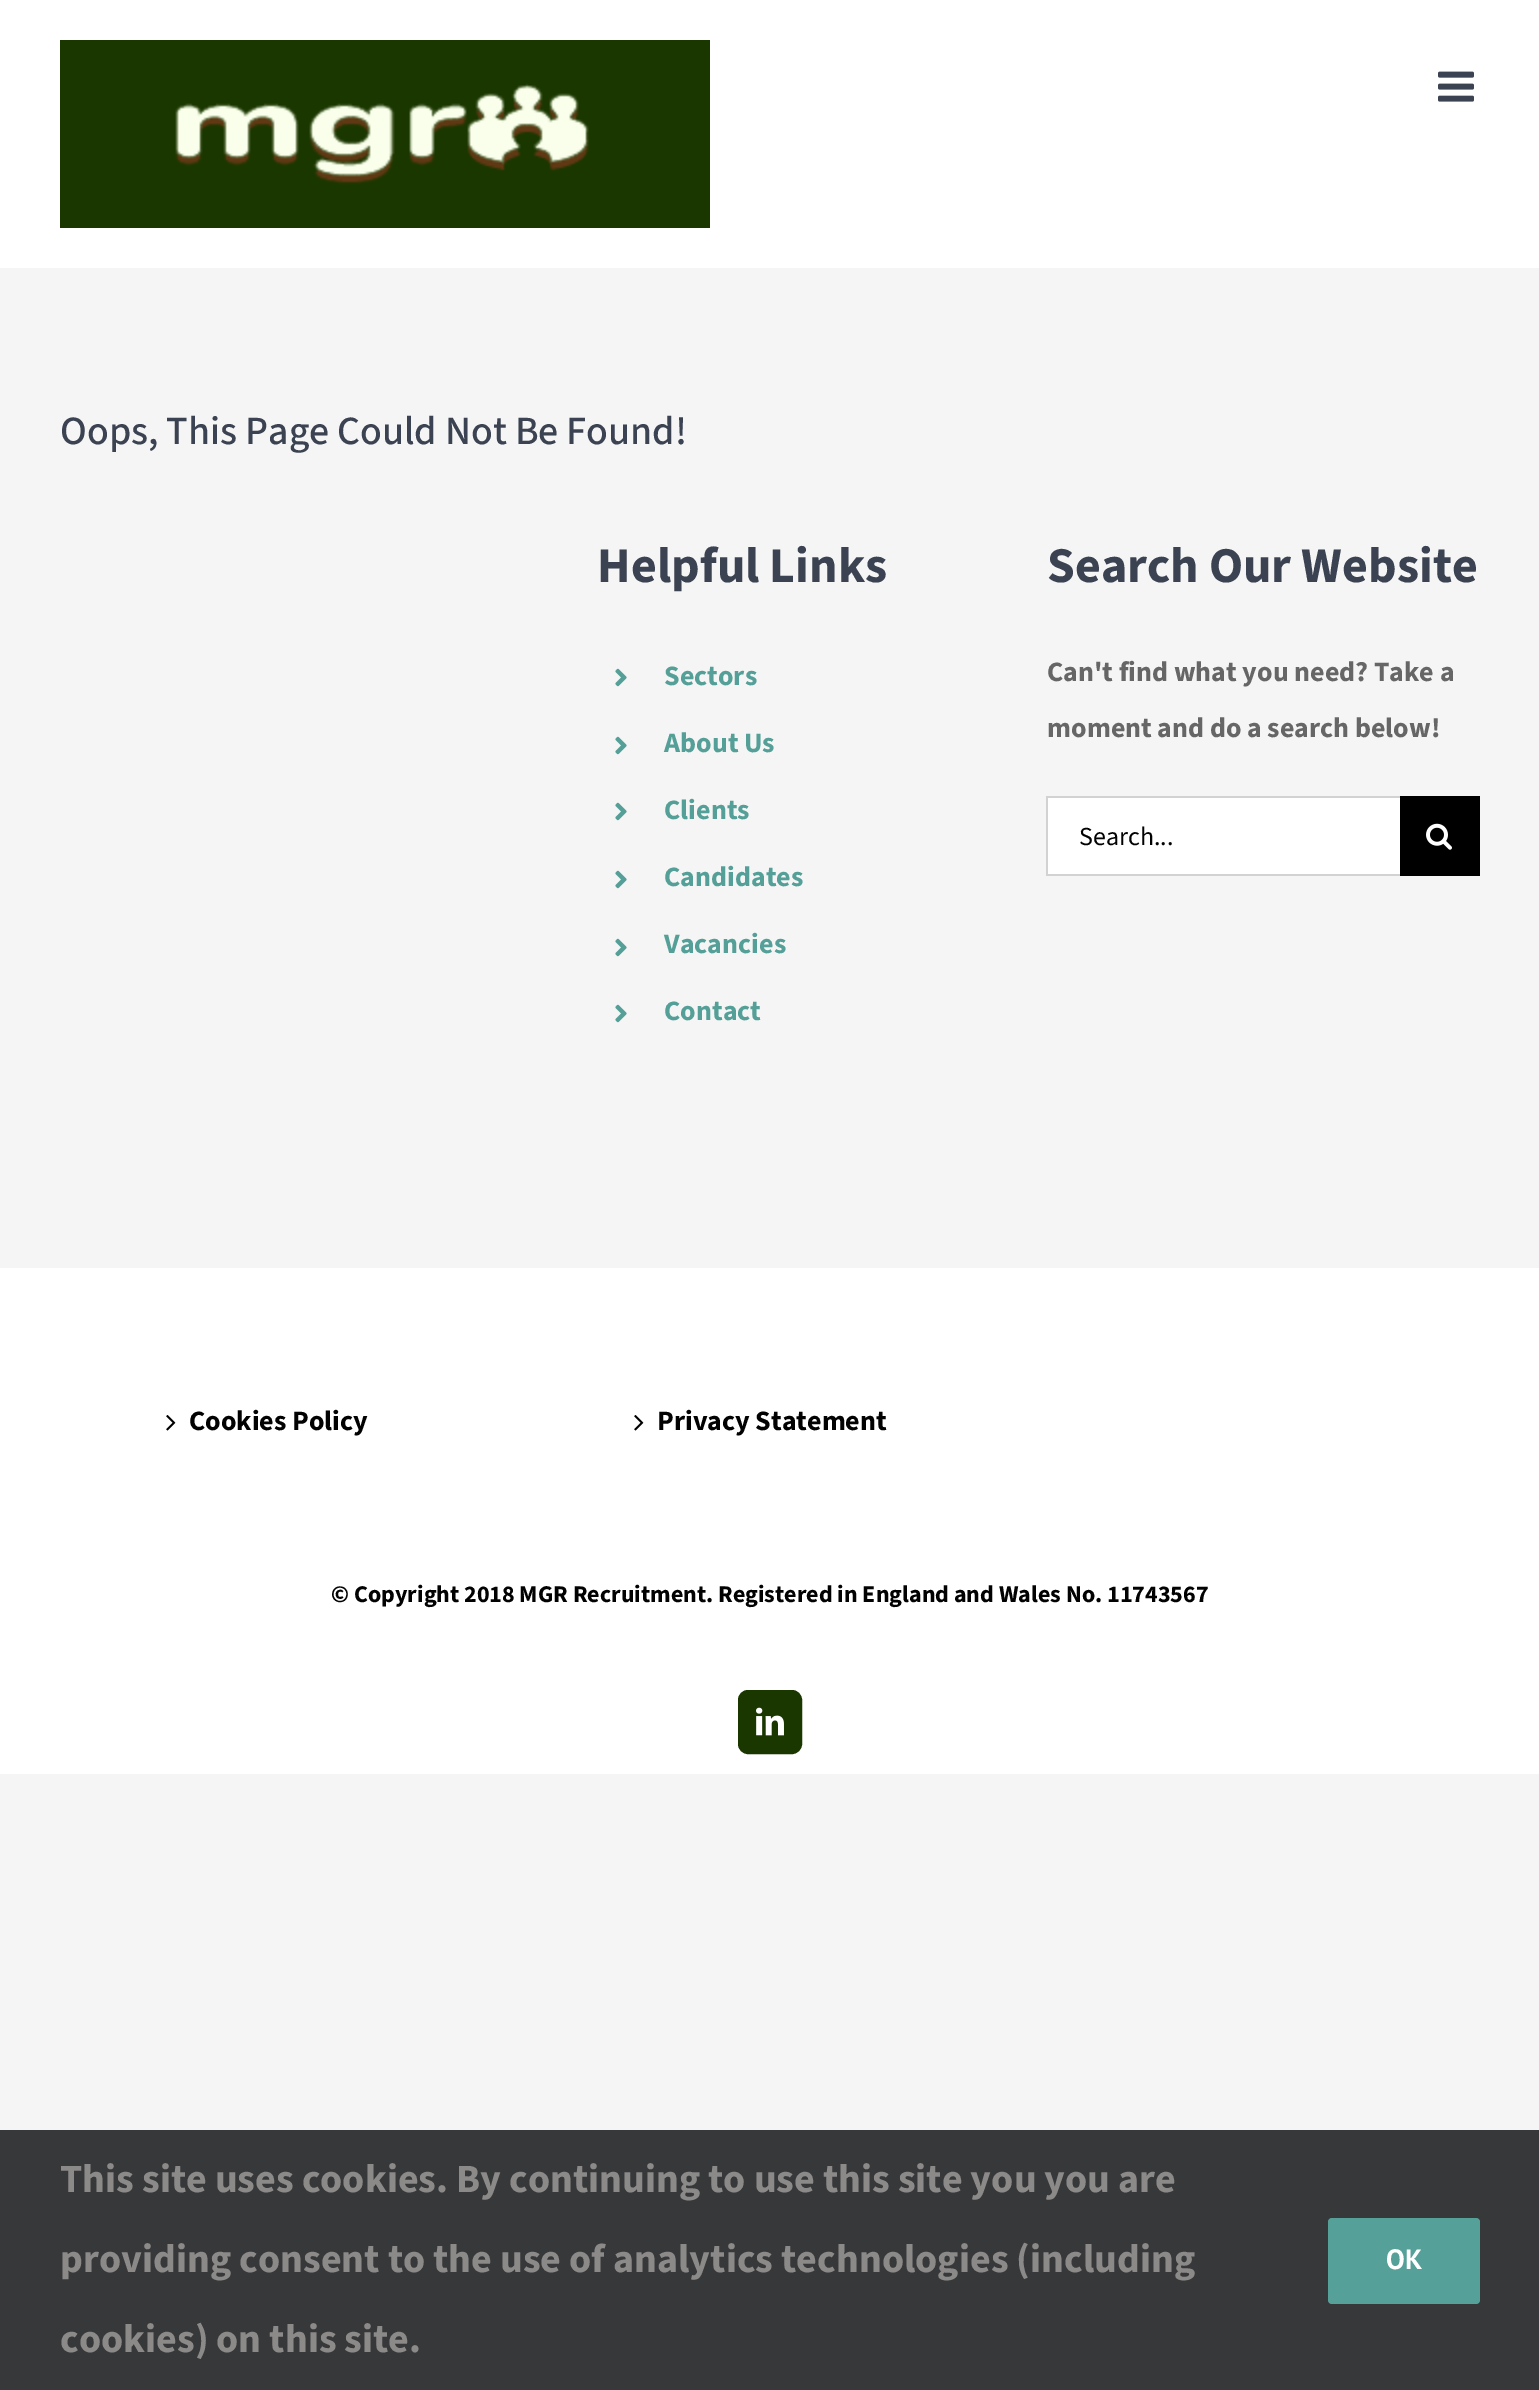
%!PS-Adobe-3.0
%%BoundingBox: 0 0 1539 2390
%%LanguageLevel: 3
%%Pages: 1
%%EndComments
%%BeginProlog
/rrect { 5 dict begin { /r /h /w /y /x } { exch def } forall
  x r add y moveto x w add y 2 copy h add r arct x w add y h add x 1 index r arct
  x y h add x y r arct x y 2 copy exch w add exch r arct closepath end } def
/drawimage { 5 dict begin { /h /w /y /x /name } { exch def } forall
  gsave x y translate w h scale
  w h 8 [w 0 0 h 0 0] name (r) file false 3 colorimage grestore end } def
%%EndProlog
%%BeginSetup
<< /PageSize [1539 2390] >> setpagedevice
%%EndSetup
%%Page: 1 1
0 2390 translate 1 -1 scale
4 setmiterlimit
0.961 setgray
0 0 1539 2390 rectfill
1 setgray
0 0 1539 268 rectfill
(images/1.raw) 60 40 650 188 drawimage
(images/2.raw) 1438 71 36 31 drawimage
(images/3.raw) 615 668 12 19 drawimage
(images/3.raw) 615 736 12 19 drawimage
(images/3.raw) 615 802 12 19 drawimage
(images/3.raw) 615 870 12 19 drawimage
(images/3.raw) 615 938 12 19 drawimage
(images/3.raw) 615 1004 12 19 drawimage
1048 798 352 76 rectfill
0.824 setgray
1046 796 354 2 rectfill
1046 874 354 2 rectfill
1046 796 2 80 rectfill
0 setgray
1400 796 80 80 rectfill
(images/4.raw) 1426 823 26 27 drawimage
1 setgray
0 1268 1539 506 rectfill
(images/5.raw) 166 1415 10 16 drawimage
(images/5.raw) 634 1415 10 16 drawimage
0.102 0.216 0 setrgbcolor
739 1691 62 62 9 rrect gsave fill grestore
2 setlinewidth
stroke
(images/6.raw) 756 1707 28 29 drawimage
0.212 0.22 0.224 setrgbcolor
0 2130 1539 260 rectfill
0.333 0.627 0.596 setrgbcolor
1328 2218 152 86 4 rrect fill
/SourceSans3-Medium [40 0 0 -40 0 0] selectfont
0.231 0.259 0.318 setrgbcolor
60 444 moveto (Oops, This Page Could Not Be Found!) show
/SourceSans3-Bold [50 0 0 -50 0 0] selectfont
597 582 moveto (Helpful Links) show
/SourceSans3-Bold [28 0 0 -28 0 0] selectfont
0.329 0.624 0.592 setrgbcolor
664 685 moveto (Sectors) show
664 752 moveto (About Us) show
664 819 moveto (Clients) show
664 886 moveto (Candidates) show
664 953 moveto (Vacancies) show
664 1020 moveto (Contact) show
/SourceSans3-Bold [50 0 0 -50 0 0] selectfont
0.231 0.259 0.318 setrgbcolor
1047 582 moveto (Search Our Website) show
/SourceSans3-Bold [28 0 0 -28 0 0] selectfont
0.4 setgray
1047 681 moveto (Can't find what you need? Take a) show
1047 737 moveto (moment and do a search below!) show
/SourceSans3-Regular [26 0 0 -26 0 0] selectfont
0.008 setgray
1079 845 moveto (Search...) show
/SourceSans3-Bold [28 0 0 -28 0 0] selectfont
189 1430 moveto (Cookies Policy) show
657 1430 moveto (Privacy Statement) show
/SourceSans3-Bold [24 0 0 -24 0 0] selectfont
331 1602 moveto (© Copyright 2018 MGR Recruitment. Registered in England and Wales No. 11743567) show
/SourceSans3-Bold [40 0 0 -40 0 0] selectfont
0.549 0.537 0.537 setrgbcolor
60 2192 moveto (This site uses cookies. By continuing to use this site you you are) show
60 2272 moveto (providing consent to the use of analytics technologies \(including) show
60 2352 moveto (cookies\) on this site.) show
/PTSans-Bold [28 0 0 -28 0 0] selectfont
1 setgray
1386 2269 moveto (OK) show
showpage
%%EOF
